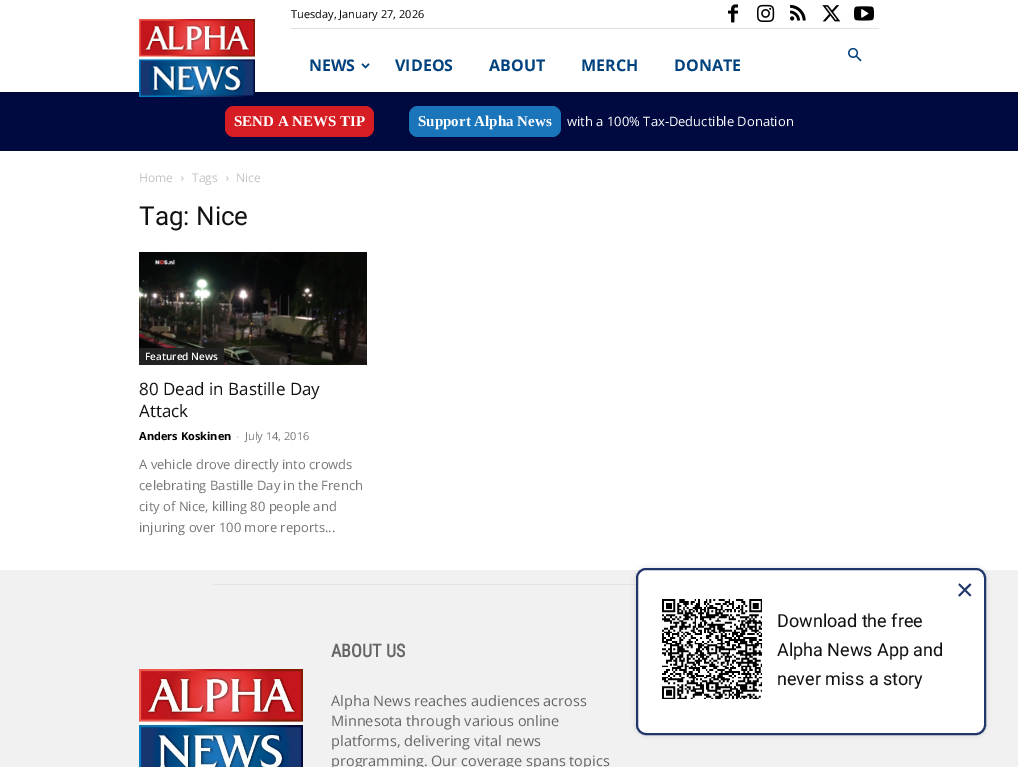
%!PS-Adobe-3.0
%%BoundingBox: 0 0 1018 767
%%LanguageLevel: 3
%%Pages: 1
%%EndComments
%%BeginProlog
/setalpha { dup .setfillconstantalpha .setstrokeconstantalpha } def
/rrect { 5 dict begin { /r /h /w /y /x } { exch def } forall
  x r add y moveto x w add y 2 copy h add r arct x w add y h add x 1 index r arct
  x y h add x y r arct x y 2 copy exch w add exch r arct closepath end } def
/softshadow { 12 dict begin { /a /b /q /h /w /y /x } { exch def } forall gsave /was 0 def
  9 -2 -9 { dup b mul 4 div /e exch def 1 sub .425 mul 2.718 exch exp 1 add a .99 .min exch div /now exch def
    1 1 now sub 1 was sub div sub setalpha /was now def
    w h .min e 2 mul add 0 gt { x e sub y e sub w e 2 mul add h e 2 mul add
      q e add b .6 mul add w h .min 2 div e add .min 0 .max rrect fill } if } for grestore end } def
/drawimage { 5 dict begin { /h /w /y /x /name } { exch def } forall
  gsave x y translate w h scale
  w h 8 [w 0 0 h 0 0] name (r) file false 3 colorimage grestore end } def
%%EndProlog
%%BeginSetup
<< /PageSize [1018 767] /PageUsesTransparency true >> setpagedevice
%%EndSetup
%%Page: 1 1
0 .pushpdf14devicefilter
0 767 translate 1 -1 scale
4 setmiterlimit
1 setgray
0 0 1018 767 rectfill
0.878 setgray
291 28 588 1 rectfill
(images/1.raw) 728 4 10 19 drawimage
(images/2.raw) 757 4 18 18 drawimage
(images/3.raw) 790 4 16 17 drawimage
(images/4.raw) 822 5 19 17 drawimage
(images/5.raw) 854 6 20 15 drawimage
0 0.039 0.251 setrgbcolor
0 92 1018 59 rectfill
(images/9.raw) 0 92 1018 4 drawimage
(images/6.raw) 139 19 116 78 drawimage
(images/7.raw) 848 47 14 15 drawimage
(images/8.raw) 361 63 9 6 drawimage
0.839 0.114 0.137 setrgbcolor
225 106 149 31 9 rrect fill
0.106 0.459 0.733 setrgbcolor
409 106 152 31 9 rrect fill
(images/10.raw) 181 176 3 5 drawimage
(images/10.raw) 226 176 3 5 drawimage
(images/11.raw) 139 252 228 113 drawimage
0.133 setgray
139 348 85 17 rectfill
0.945 setgray
0 570 1018 197 rectfill
0.89 setgray
213 584 423 1 rectfill
(images/12.raw) 139 669 164 98 drawimage
0 setgray
635 567 352 169 11 2 0.08 softshadow
1 setgray
637 569 348 165 9 rrect gsave fill grestore
0.129 0.216 0.42 setrgbcolor
2 setlinewidth
stroke
(images/13.raw) 662 599 100 100 drawimage
/OpenSans-Regular [11 0 0 -11 0 0] selectfont
0 setgray
291 18 moveto (Tuesday, January 27, 2026) show
/OpenSans-Bold [16 0 0 -16 0 0] selectfont
0 0.255 0.494 setrgbcolor
309 71 moveto (NEWS) show
395 71 moveto (VIDEOS) show
489 71 moveto (ABOUT) show
581 71 moveto (MERCH) show
674 71 moveto (DONATE) show
/LiberationSerif-Bold [15 0 0 -15 0 0] selectfont
1 setgray
234 126 moveto (SEND A NEWS TIP) show
418 126 moveto (Support Alpha News) show
/OpenSans-Regular [13 0 0 -13 0 0] selectfont
567 126 moveto (with a 100% Tax-Deductible Donation) show
/OpenSans-Regular [12 0 0 -12 0 0] selectfont
0.765 setgray
139 182 moveto (Home) show
192 182 moveto (Tags) show
236 182 moveto (Nice) show
/Roboto-Regular [26 0 0 -26 0 0] selectfont
0.067 setgray
139 225 moveto (Tag: Nice) show
/OpenSans-SemiBold [10 0 0 -10 0 0] selectfont
1 setgray
145 360 moveto (Featured News) show
/OpenSans-Regular [17 0 0 -17 0 0] selectfont
0.067 setgray
139 395 moveto (80 Dead in Bastille Day) show
139 417 moveto (Attack) show
/OpenSans-Bold [11 0 0 -11 0 0] selectfont
0 setgray
139 440 moveto (Anders Koskinen) show
/OpenSans-Regular [11 0 0 -11 0 0] selectfont
0.8 setgray
236 440 moveto (-) show
0.463 setgray
245 440 moveto (July 14, 2016) show
/OpenSans-Regular [13 0 0 -13 0 0] selectfont
139 469 moveto (A vehicle drove directly into crowds) show
139 490 moveto (celebrating Bastille Day in the French) show
139 511 moveto (city of Nice, killing 80 people and) show
139 532 moveto (injuring over 100 more reports...) show
/RobotoCondensed-Bold [18 0 0 -18 0 0] selectfont
0.4 setgray
331 657 moveto (ABOUT US) show
/OpenSans-Regular [14.5 0 0 -14.5 0 0] selectfont
331 706 moveto (Alpha News reaches audiences across) show
331 726 moveto (Minnesota through various online) show
331 746 moveto (platforms, delivering vital news) show
331 766 moveto (programming. Our coverage spans topics) show
/LiberationSans-Regular [30 0 0 -30 0 0] selectfont
0.129 0.216 0.42 setrgbcolor
956 600 moveto (×) show
/Roboto-Regular [18 0 0 -18 0 0] selectfont
0.067 setgray
777 627 moveto (Download the free) show
777 656 moveto (Alpha News App and) show
777 685 moveto (never miss a story) show
.poppdf14devicefilter showpage
%%EOF
